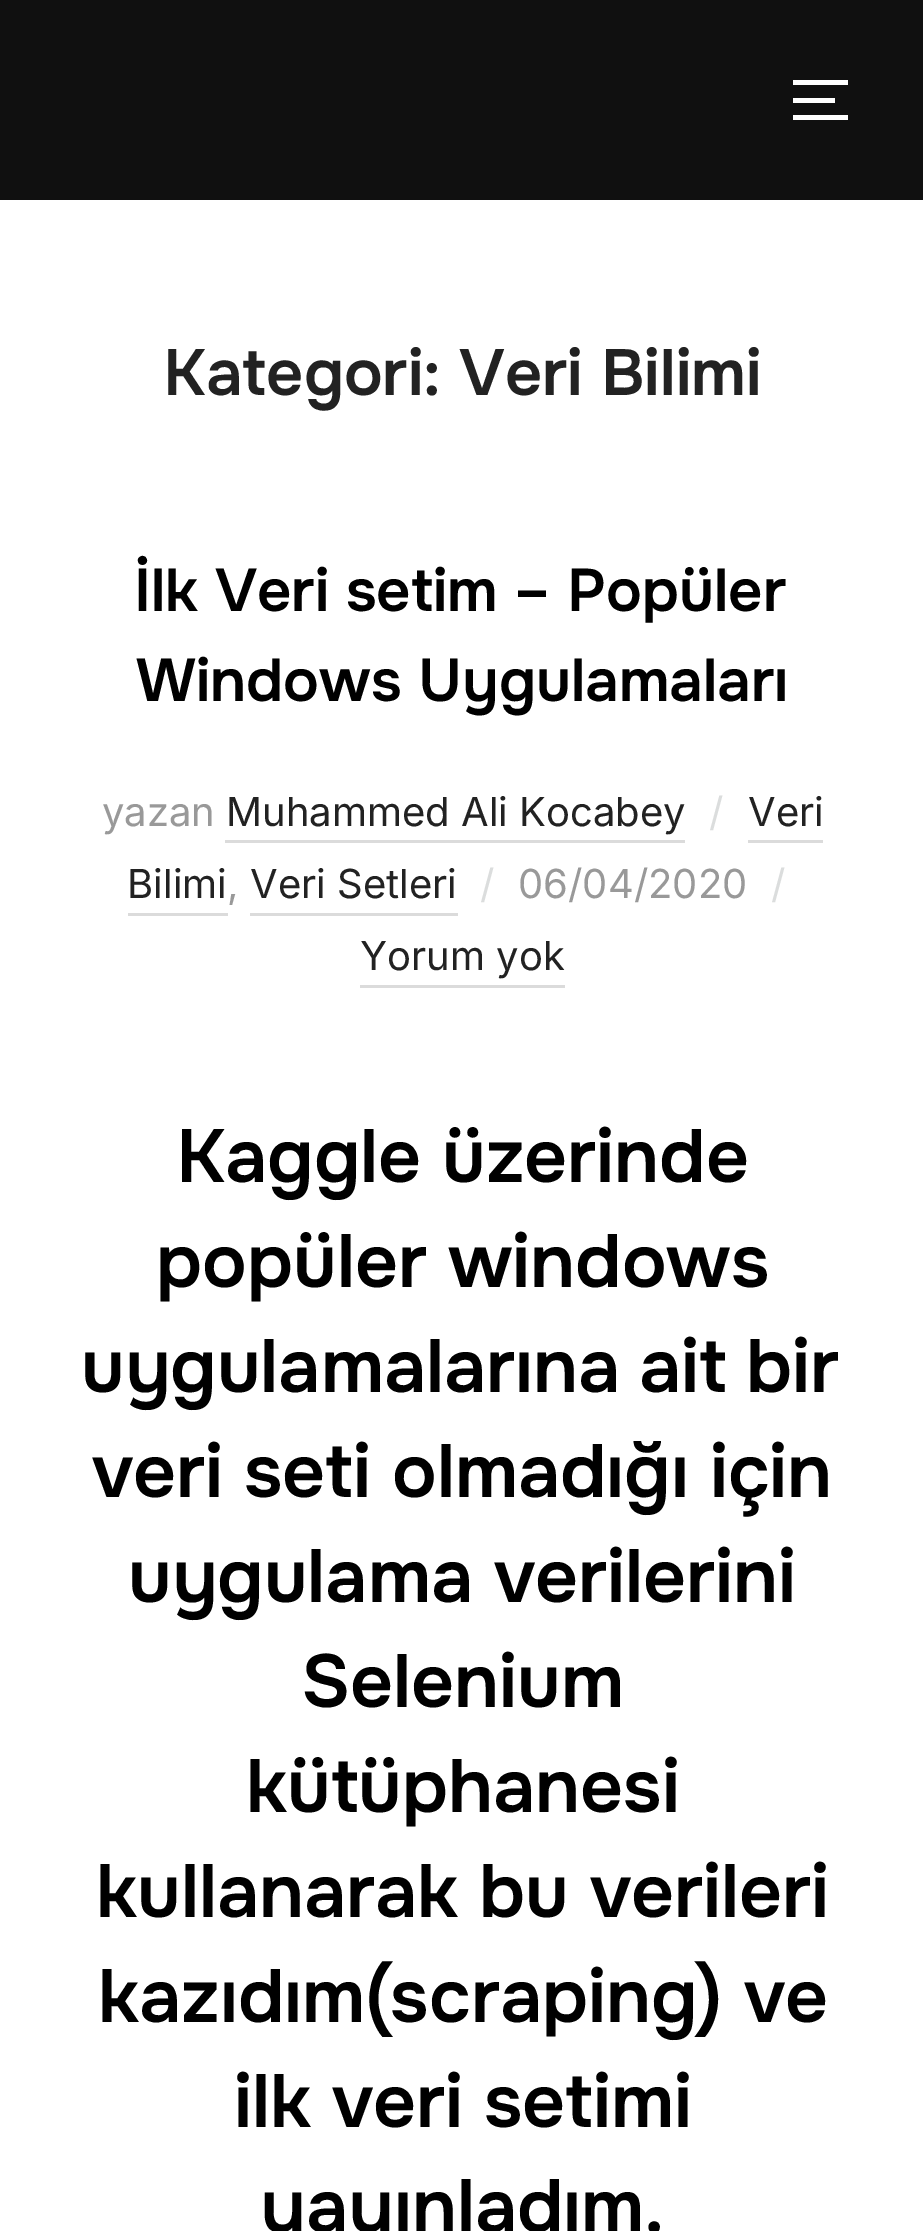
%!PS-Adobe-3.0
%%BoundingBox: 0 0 923 2231
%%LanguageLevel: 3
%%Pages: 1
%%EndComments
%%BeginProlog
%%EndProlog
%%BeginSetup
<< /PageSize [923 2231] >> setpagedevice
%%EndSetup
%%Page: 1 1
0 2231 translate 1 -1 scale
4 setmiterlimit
1 setgray
0 0 923 2231 rectfill
0.063 setgray
0 0 923 200 rectfill
1 setgray
793 80 55 5 rectfill
793 98 42 5 rectfill
793 115 55 5 rectfill
0.859 setgray
225 840 460 3 rectfill
748 840 75 3 rectfill
128 913 100 3 rectfill
250 913 208 3 rectfill
360 985 205 3 rectfill
/Onest-SemiBold [65 0 0 -65 0 0] selectfont
0.133 setgray
163 395 moveto (Kategori:) show
459 395 moveto (Veri Bilimi) show
/Onest-SemiBold [60 0 0 -60 0 0] selectfont
0 setgray
134 611 moveto (İlk Veri setim – Popüler) show
136 701 moveto (Windows Uygulamaları) show
/Inter-Regular [40 0 0 -40 0 0] selectfont
0.6 setgray
102 826 moveto (yazan) show
0.133 setgray
226 826 moveto (Muhammed Ali Kocabey) show
0.859 0.867 0.867 setrgbcolor
709 826 moveto (/) show
0.133 setgray
748 826 moveto (Veri) show
127 898 moveto (Bilimi) show
0.6 setgray
227 898 moveto (,) show
0.133 setgray
250 898 moveto (Veri Setleri) show
0.859 0.867 0.867 setrgbcolor
480 898 moveto (/) show
0.6 setgray
518 898 moveto (06/04/2020) show
0.859 0.867 0.867 setrgbcolor
771 898 moveto (/) show
0.133 setgray
360 970 moveto (Yorum yok) show
/Onest-SemiBold [75 0 0 -75 0 0] selectfont
0 setgray
176 1182 moveto (Kaggle üzerinde) show
156 1287 moveto (popüler windows) show
81 1392 moveto -2 0 32 (uygulamalarına ait bir) widthshow
92 1497 moveto (veri seti olmadığı için) show
128 1602 moveto (uygulama verilerini) show
301 1707 moveto (Selenium) show
246 1812 moveto (kütüphanesi) show
96 1917 moveto (kullanarak bu verileri) show
98 2022 moveto (kazıdım\(scraping\) ve) show
234 2127 moveto (ilk veri setimi) show
260 2232 moveto (yayınladım.) show
showpage
%%EOF
